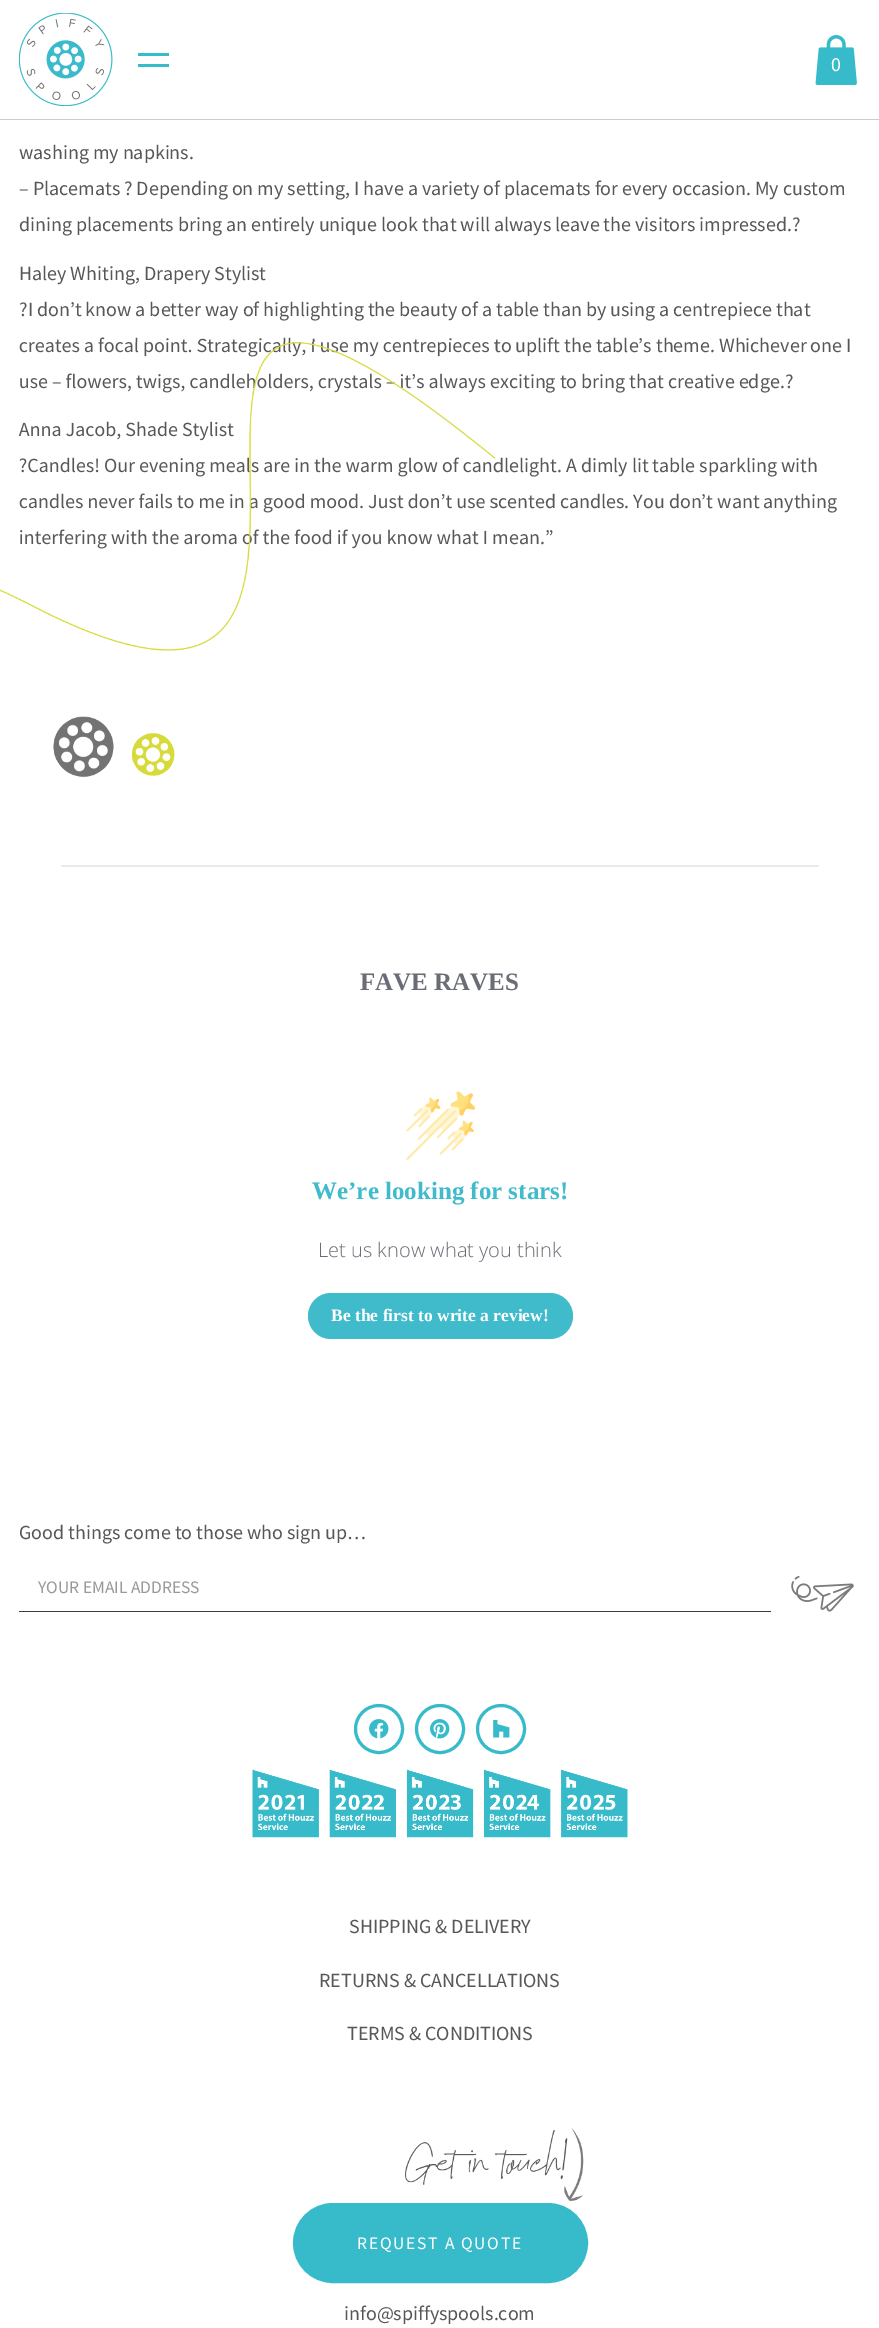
%!PS-Adobe-3.0
%%BoundingBox: 0 0 879 2328
%%LanguageLevel: 3
%%Pages: 1
%%EndComments
%%BeginProlog
/rrect { 5 dict begin { /r /h /w /y /x } { exch def } forall
  x r add y moveto x w add y 2 copy h add r arct x w add y h add x 1 index r arct
  x y h add x y r arct x y 2 copy exch w add exch r arct closepath end } def
/drawimage { 5 dict begin { /h /w /y /x /name } { exch def } forall
  gsave x y translate w h scale
  w h 8 [w 0 0 h 0 0] name (r) file false 3 colorimage grestore end } def
%%EndProlog
%%BeginSetup
<< /PageSize [879 2328] >> setpagedevice
%%EndSetup
%%Page: 1 1
0 2328 translate 1 -1 scale
4 setmiterlimit
1 setgray
0 0 879 2328 rectfill
0.8 setgray
0 119 879 1 rectfill
(images/1.raw) 19 13 94 93 drawimage
0.216 0.733 0.792 setrgbcolor
138 53 31 3 rectfill
138 64 31 3 rectfill
(images/2.raw) 815 35 42 50 drawimage
(images/4.raw) 61 865 758 2 drawimage
(images/5.raw) 406 1091 69 69 drawimage
0.251 0.733 0.796 setrgbcolor
308 1293 265 46 23 rrect fill
0.239 setgray
19 1611 752 1 rectfill
(images/6.raw) 791 1576 63 36 drawimage
0.216 0.733 0.792 setrgbcolor
3 setlinewidth
newpath 379 1729 23.5 0 360 arc closepath stroke
(images/7.raw) 369 1719 20 20 drawimage
newpath 440 1729 23.5 0 360 arc closepath stroke
(images/8.raw) 430 1719 20 20 drawimage
newpath 501 1729 23.5 0 360 arc closepath stroke
(images/9.raw) 493 1720 17 18 drawimage
(images/10.raw) 252 1769 376 69 drawimage
294.5 2204.5 292 77 38.5 rrect gsave fill grestore
stroke
(images/11.raw) 405 2128 179 73 drawimage
/SourceSansPro-Regular [20 0 0 -20 0 0] selectfont
1 setgray
831 71 moveto (0) show
0.341 setgray
19 159 moveto (washing my napkins.) show
19 195 moveto (– Placemats ? Depending on my setting, I have a variety of placemats for every occasion. My custom) show
19 231 moveto (dining placements bring an entirely unique look that will always leave the visitors impressed.?) show
19 280 moveto (Haley Whiting, Drapery Stylist) show
19 316 moveto (?I don’t know a better way of highlighting the beauty of a table than by using a centrepiece that) show
19 352 moveto (creates a focal point. Strategically, I use my centrepieces to uplift the table’s theme. Whichever one I) show
19 388 moveto (use – flowers, twigs, candleholders, crystals – it’s always exciting to bring that creative edge.?) show
19 436 moveto (Anna Jacob, Shade Stylist) show
19 472 moveto (?Candles! Our evening meals are in the warm glow of candlelight. A dimly lit table sparkling with) show
19 508 moveto (candles never fails to me in a good mood. Just don’t use scented candles. You don’t want anything) show
19 544 moveto (interfering with the aroma of the food if you know what I mean.”) show
(images/3.raw) 0 342 496 436 drawimage
/LiberationSerif-Bold [25 0 0 -25 0 0] selectfont
0.42 0.427 0.463 setrgbcolor
360 990 moveto (FAVE RAVES) show
0.251 0.733 0.796 setrgbcolor
312 1199 moveto (We’re looking for stars!) show
/OpenSans-Light [20 0 0 -20 0 0] selectfont
0.42 0.427 0.463 setrgbcolor
318 1257 moveto (Let us know what you think) show
/LiberationSerif-Bold [17.5 0 0 -17.5 0 0] selectfont
1 setgray
331 1321 moveto (Be the first to write a review!) show
/SourceSansPro-Regular [20 0 0 -20 0 0] selectfont
0.341 setgray
19 1539 moveto (Good things come to those who sign up…) show
/SourceSansPro-Regular [17.5 0 0 -17.5 0 0] selectfont
0.6 setgray
38 1593 moveto (YOUR EMAIL ADDRESS) show
/SourceSansPro-Regular [20 0 0 -20 0 0] selectfont
0.341 setgray
349 1933 moveto (SHIPPING & DELIVERY) show
319 1987 moveto (RETURNS & CANCELLATIONS) show
347 2040 moveto (TERMS & CONDITIONS) show
/SourceSansPro-Regular [17.5 0 0 -17.5 0 0] selectfont
1 setgray
357 2249 moveto 1.75 0 (REQUEST A QUOTE) ashow
/SourceSansPro-Regular [20 0 0 -20 0 0] selectfont
0.341 setgray
344 2320 moveto (info@spiffyspools.com) show
showpage
%%EOF
